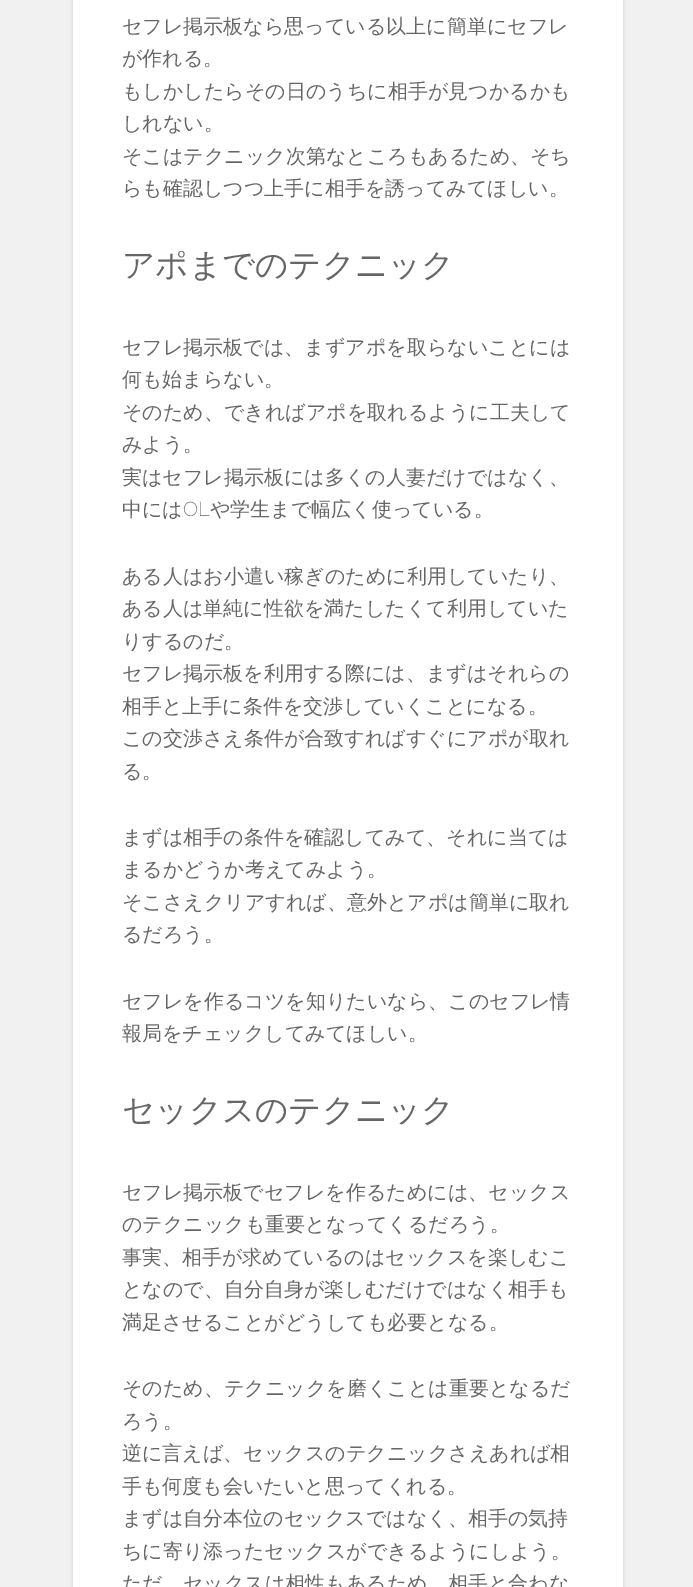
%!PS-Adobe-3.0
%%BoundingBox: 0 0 693 1587
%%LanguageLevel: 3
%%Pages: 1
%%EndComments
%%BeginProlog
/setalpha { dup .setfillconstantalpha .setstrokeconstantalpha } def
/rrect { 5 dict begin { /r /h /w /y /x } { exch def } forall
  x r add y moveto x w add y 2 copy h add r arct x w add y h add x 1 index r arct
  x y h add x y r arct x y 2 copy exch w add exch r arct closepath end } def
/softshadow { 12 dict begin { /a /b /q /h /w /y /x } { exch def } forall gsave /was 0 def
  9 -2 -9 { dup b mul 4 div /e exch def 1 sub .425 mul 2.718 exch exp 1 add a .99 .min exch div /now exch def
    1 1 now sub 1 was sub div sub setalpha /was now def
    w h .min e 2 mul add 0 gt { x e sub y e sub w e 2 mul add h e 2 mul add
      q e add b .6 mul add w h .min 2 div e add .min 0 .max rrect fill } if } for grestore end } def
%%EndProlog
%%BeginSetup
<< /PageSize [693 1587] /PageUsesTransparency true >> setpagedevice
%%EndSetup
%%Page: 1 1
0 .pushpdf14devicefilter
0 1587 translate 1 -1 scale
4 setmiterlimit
0.945 setgray
0 0 693 1587 rectfill
0 setgray
73 -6 550 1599 0 2 0.15 softshadow
1 setgray
73 0 550 1587 rectfill
/WenQuanYiZenHei-Medium [20 0 0 -20 0 0] selectfont
0.4 setgray
122 33 moveto (セフレ掲示板なら思っている以上に簡単にセフレ) show
122 65 moveto (が作れる。) show
122 98 moveto (もしかしたらその日のうちに相手が見つかるかも) show
122 130 moveto (しれない。) show
122 163 moveto (そこはテクニック次第なところもあるため、そち) show
122 195 moveto (らも確認しつつ上手に相手を誘ってみてほしい。) show
/WenQuanYiZenHei-Medium [32.5 0 0 -32.5 0 0] selectfont
122 276 moveto (アポまでのテクニック) show
/WenQuanYiZenHei-Medium [20 0 0 -20 0 0] selectfont
122 354 moveto (セフレ掲示板では、まずアポを取らないことには) show
122 386 moveto (何も始まらない。) show
122 419 moveto (そのため、できればアポを取れるように工夫して) show
122 451 moveto (みよう。) show
122 484 moveto (実はセフレ掲示板には多くの人妻だけではなく、) show
122 516 moveto (中には) show
/Raleway-ExtraLight [20 0 0 -20 0 0] selectfont
183 516 moveto (OL) show
/WenQuanYiZenHei-Medium [20 0 0 -20 0 0] selectfont
210 516 moveto (や学生まで幅広く使っている。) show
122 583 moveto (ある人はお小遣い稼ぎのために利用していたり、) show
122 615 moveto (ある人は単純に性欲を満たしたくて利用していた) show
122 648 moveto (りするのだ。) show
122 680 moveto (セフレ掲示板を利用する際には、まずはそれらの) show
122 713 moveto (相手と上手に条件を交渉していくことになる。) show
122 745 moveto (この交渉さえ条件が合致すればすぐにアポが取れ) show
122 778 moveto (る。) show
122 844 moveto (まずは相手の条件を確認してみて、それに当ては) show
122 876 moveto (まるかどうか考えてみよう。) show
122 909 moveto (そこさえクリアすれば、意外とアポは簡単に取れ) show
122 941 moveto (るだろう。) show
122 1008 moveto (セフレを作るコツを知りたいなら、このセフレ情) show
122 1040 moveto (報局をチェックしてみてほしい。) show
/WenQuanYiZenHei-Medium [32.5 0 0 -32.5 0 0] selectfont
122 1121 moveto (セックスのテクニック) show
/WenQuanYiZenHei-Medium [20 0 0 -20 0 0] selectfont
122 1199 moveto (セフレ掲示板でセフレを作るためには、セックス) show
122 1231 moveto (のテクニックも重要となってくるだろう。) show
122 1264 moveto (事実、相手が求めているのはセックスを楽しむこ) show
122 1296 moveto (となので、自分自身が楽しむだけではなく相手も) show
122 1329 moveto (満足させることがどうしても必要となる。) show
122 1395 moveto (そのため、テクニックを磨くことは重要となるだ) show
122 1428 moveto (ろう。) show
122 1460 moveto (逆に言えば、セックスのテクニックさえあれば相) show
122 1493 moveto (手も何度も会いたいと思ってくれる。) show
122 1525 moveto (まずは自分本位のセックスではなく、相手の気持) show
122 1558 moveto (ちに寄り添ったセックスができるようにしよう。) show
122 1590 moveto (ただ、セックスは相性もあるため、相手と合わな) show
.poppdf14devicefilter showpage
%%EOF
